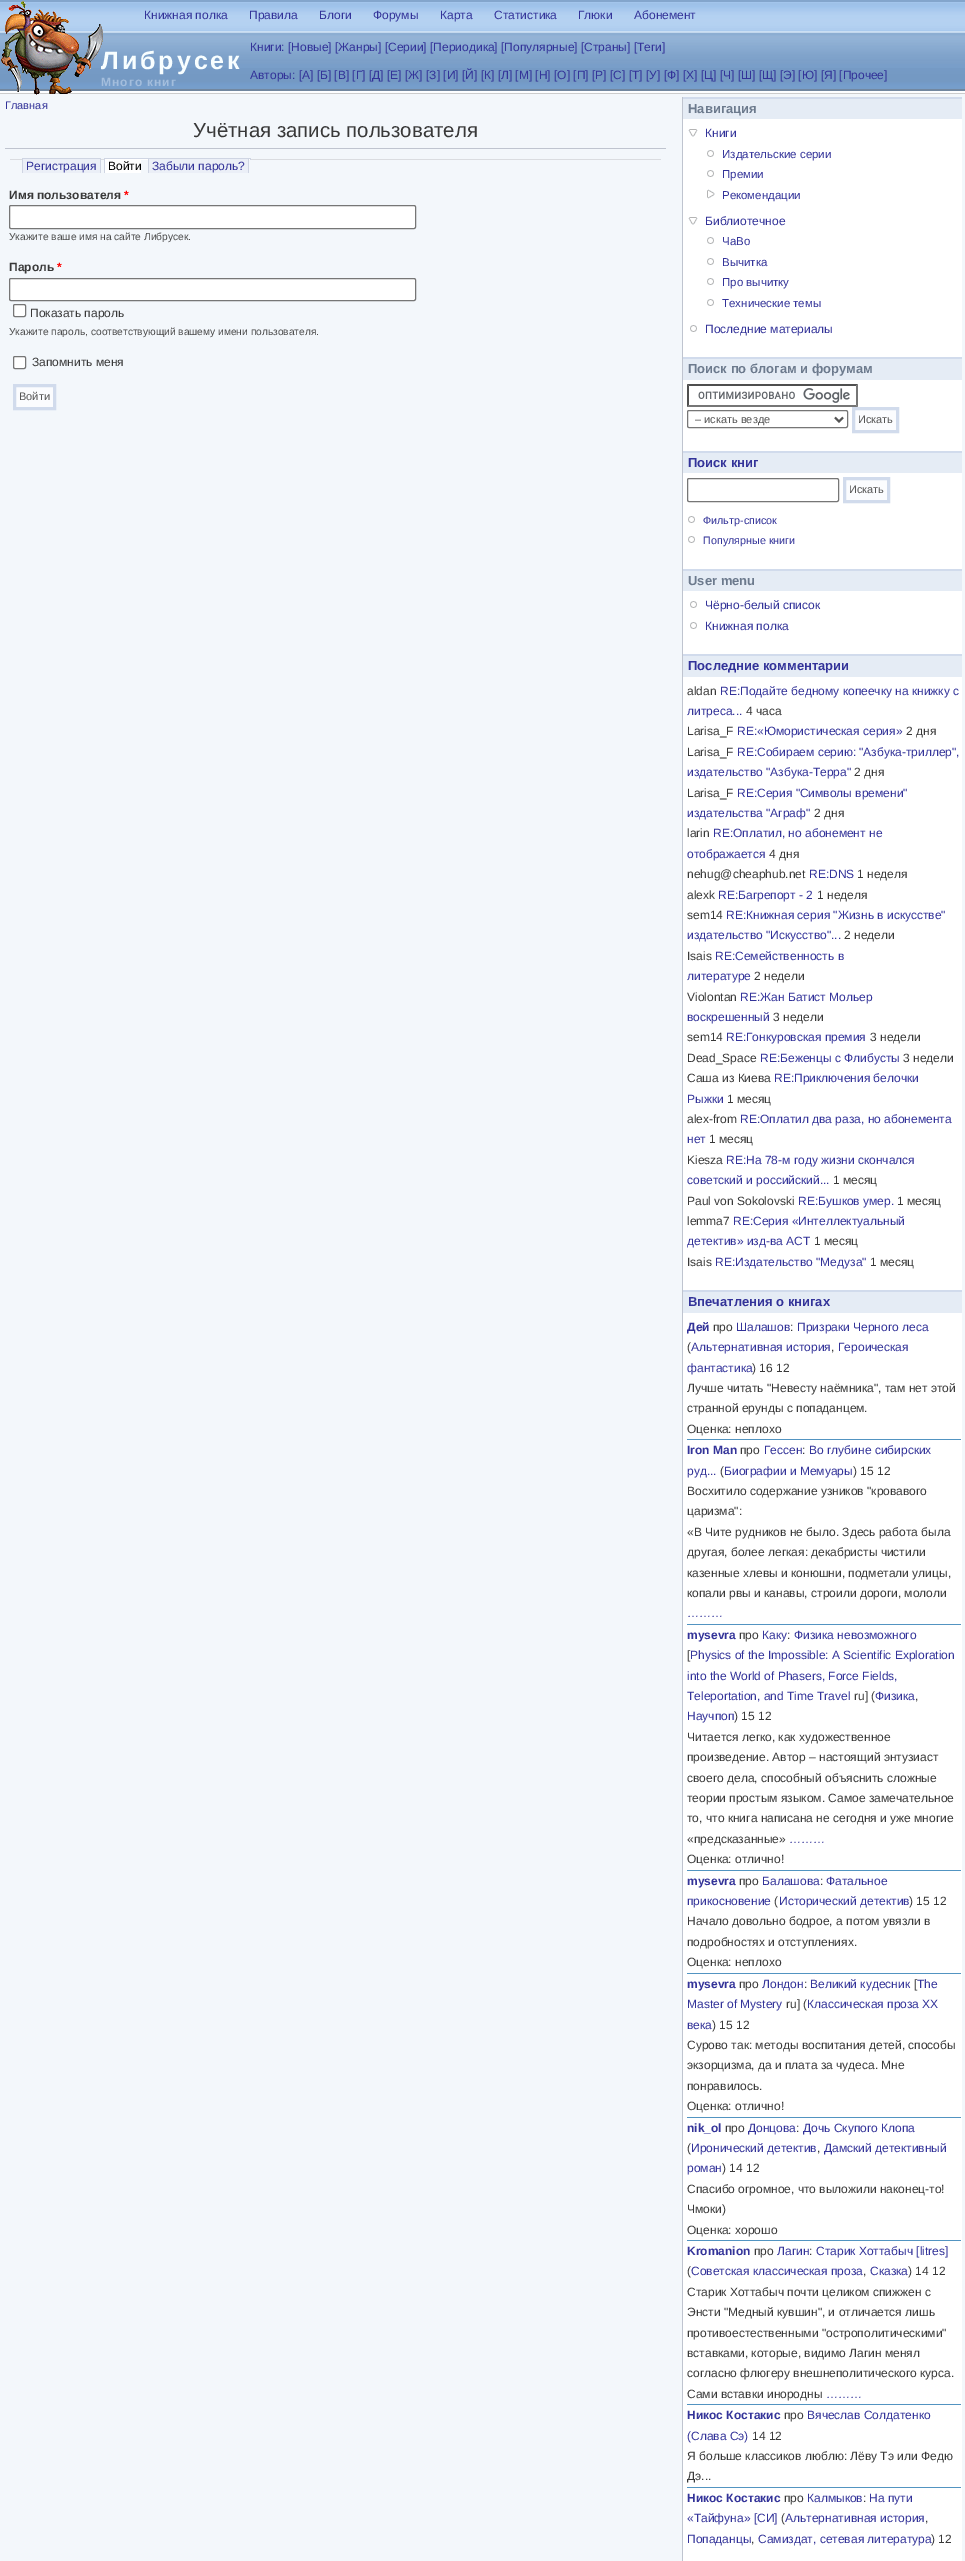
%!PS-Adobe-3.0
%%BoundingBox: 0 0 965 2561
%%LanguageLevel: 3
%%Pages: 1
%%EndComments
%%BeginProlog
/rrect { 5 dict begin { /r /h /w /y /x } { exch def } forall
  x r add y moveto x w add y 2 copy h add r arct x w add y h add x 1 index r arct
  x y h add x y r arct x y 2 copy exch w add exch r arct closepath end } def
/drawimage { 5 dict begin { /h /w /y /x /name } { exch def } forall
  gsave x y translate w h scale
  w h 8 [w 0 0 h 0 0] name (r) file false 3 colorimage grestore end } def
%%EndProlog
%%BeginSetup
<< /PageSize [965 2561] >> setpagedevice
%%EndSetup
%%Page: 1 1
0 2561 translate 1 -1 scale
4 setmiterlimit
0.992 0.996 1 setrgbcolor
0 0 965 2561 rectfill
(images/1.raw) 0 0 965 91 drawimage
0.953 0.969 0.984 setrgbcolor
0 94 965 2467 rectfill
0.8 setgray
0 93 965 1 rectfill
(images/2.raw) 1 1 102 94 drawimage
0.749 0.769 0.812 setrgbcolor
5 148 661 1 rectfill
0.855 0.863 0.878 setrgbcolor
10 159 651 1 rectfill
0.922 0.937 0.969 setrgbcolor
23 159 77 14 rectfill
0.812 0.835 0.89 setrgbcolor
22 158 79 1 rectfill
100 158 1 15 rectfill
22 158 1 15 rectfill
1 setgray
105 159 36 14 rectfill
0.812 0.835 0.89 setrgbcolor
104 158 147 1 rectfill
104 158 1 15 rectfill
1 setgray
141 159 110 1 rectfill
0.812 0.835 0.89 setrgbcolor
250 158 1 2 rectfill
0.922 0.937 0.969 setrgbcolor
149 159 99 14 rectfill
0.812 0.835 0.89 setrgbcolor
248 158 1 15 rectfill
148 158 1 15 rectfill
1 setgray
9.5 205.5 406 23 1.5 rrect gsave fill grestore
0.463 setgray
stroke
1 setgray
9.5 278.5 406 22 1.5 rrect gsave fill grestore
0.463 setgray
stroke
1 setgray
13.5 304.5 12 12 1.5 rrect gsave fill grestore
0.463 setgray
stroke
1 setgray
13.5 356.5 12 12 1.5 rrect gsave fill grestore
0.463 setgray
stroke
0.984 0.988 0.996 setrgbcolor
newpath 14.5 385.5 moveto 54.5 385.5 lineto 54.5 408.5 lineto 14.5 408.5 lineto closepath gsave fill grestore
0.82 0.859 0.925 setrgbcolor
3 setlinewidth
stroke
1 setgray
683 119 279 2442 rectfill
0.749 0.769 0.812 setrgbcolor
682 97 1 2464 rectfill
0.898 0.925 0.961 setrgbcolor
683 99 279 20 rectfill
0.82 0.859 0.925 setrgbcolor
683 97 279 2 rectfill
(images/3.raw) 688 129 10 8 drawimage
(images/4.raw) 707 150 7 7 drawimage
(images/4.raw) 707 170 7 7 drawimage
(images/5.raw) 707 189 8 10 drawimage
(images/3.raw) 688 217 10 8 drawimage
(images/4.raw) 707 237 7 7 drawimage
(images/4.raw) 707 258 7 7 drawimage
(images/4.raw) 707 278 7 7 drawimage
(images/4.raw) 707 299 7 7 drawimage
(images/4.raw) 690 325 7 7 drawimage
0.898 0.925 0.961 setrgbcolor
683 359 279 21 rectfill
0.82 0.859 0.925 setrgbcolor
683 357 279 2 rectfill
(images/6.raw) 698 388 152 15 drawimage
0.31 setgray
newpath 687 384 moveto 858 384 lineto 856 386 lineto 689 386 lineto closepath fill
0.463 setgray
newpath 858 384 moveto 858 407 lineto 856 405 lineto 856 386 lineto closepath fill
newpath 858 407 moveto 687 407 lineto 689 405 lineto 856 405 lineto closepath fill
0.31 setgray
newpath 687 407 moveto 687 384 lineto 689 386 lineto 689 405 lineto closepath fill
0.463 setgray
1 setlinewidth
687.5 410.5 160 17 1.5 rrect stroke
0.333 setgray
2 setlinewidth
newpath 835 417.5 moveto 839 421.5 lineto 843 417.5 lineto stroke
0.984 0.988 0.996 setrgbcolor
newpath 853.5 408.5 moveto 897.5 408.5 lineto 897.5 431.5 lineto 853.5 431.5 lineto closepath gsave fill grestore
0.82 0.859 0.925 setrgbcolor
3 setlinewidth
stroke
0.898 0.925 0.961 setrgbcolor
683 453 279 20 rectfill
0.82 0.859 0.925 setrgbcolor
683 451 279 2 rectfill
0.463 setgray
1 setlinewidth
687.5 478.5 151 23 1.5 rrect stroke
0.984 0.988 0.996 setrgbcolor
newpath 844.5 478.5 moveto 888.5 478.5 lineto 888.5 501.5 lineto 844.5 501.5 lineto closepath gsave fill grestore
0.82 0.859 0.925 setrgbcolor
3 setlinewidth
stroke
(images/4.raw) 688 516 7 7 drawimage
(images/4.raw) 688 536 7 7 drawimage
0.898 0.925 0.961 setrgbcolor
683 571 279 20 rectfill
0.82 0.859 0.925 setrgbcolor
683 569 279 2 rectfill
(images/4.raw) 690 601 7 7 drawimage
(images/4.raw) 690 622 7 7 drawimage
0.898 0.925 0.961 setrgbcolor
683 656 279 21 rectfill
0.82 0.859 0.925 setrgbcolor
683 654 279 2 rectfill
0.898 0.925 0.961 setrgbcolor
683 1292 279 21 rectfill
0.82 0.859 0.925 setrgbcolor
683 1290 279 2 rectfill
0.322 0.58 0.757 setrgbcolor
687 1439 274 1 rectfill
687 1624 274 1 rectfill
687 1870 274 1 rectfill
687 1973 274 1 rectfill
687 2117 274 1 rectfill
687 2240 274 1 rectfill
687 2404 274 1 rectfill
687 2487 274 1 rectfill
/LiberationSans-Regular [12 0 0 -12 0 0] selectfont
0.2 0.2 0.6 setrgbcolor
144 19 moveto (Книжная полка) show
249 19 moveto (Правила) show
319 19 moveto (Блоги) show
373 19 moveto (Форумы) show
440 19 moveto (Карта) show
494 19 moveto (Статистика) show
578 19 moveto (Глюки) show
634 19 moveto (Абонемент) show
250 51 moveto (Книги: [Новые] [Жанры] [Серии] [Периодика] [Популярные] [Страны] [Теги]) show
250 79 moveto (Авторы: [А] [Б] [В] [Г] [Д] [Е] [Ж] [З] [И] [Й] [К] [Л] [М] [Н] [О] [П] [Р] [С] [Т] [У] [Ф] [Х] [Ц] [Ч] [Ш] [Щ] [Э] [Ю] [Я] [Прочее]) show
/LiberationSans-Bold [25 0 0 -25 0 0] selectfont
0.973 0.996 1 setrgbcolor
101 69 moveto 3 0 (Либрусек) ashow
/LiberationSans-Bold [12 0 0 -12 0 0] selectfont
0.643 0.745 0.867 setrgbcolor
101 86 moveto 1 0 (Много книг) ashow
/LiberationSans-Regular [11 0 0 -11 0 0] selectfont
0.2 0.2 0.6 setrgbcolor
5 109 moveto (Главная) show
/LiberationSans-Regular [20.4 0 0 -20.4 0 0] selectfont
0.224 setgray
193 137 moveto (Учётная запись пользователя) show
/LiberationSans-Regular [12 0 0 -12 0 0] selectfont
0.2 0.2 0.6 setrgbcolor
26 170 moveto (Регистрация) show
0 setgray
108 170 moveto (Войти) show
0.2 0.2 0.6 setrgbcolor
152 170 moveto (Забыли пароль?) show
/LiberationSans-Bold [12 0 0 -12 0 0] selectfont
0.224 setgray
9 199 moveto (Имя пользователя) show
1 0 0 setrgbcolor
124 199 moveto (*) show
/LiberationSans-Regular [10.2 0 0 -10.2 0 0] selectfont
0.286 setgray
9 240 moveto (Укажите ваше имя на сайте Либрусек.) show
/LiberationSans-Bold [12 0 0 -12 0 0] selectfont
0.224 setgray
9 271 moveto (Пароль) show
1 0 0 setrgbcolor
57 271 moveto (*) show
/LiberationSans-Regular [12 0 0 -12 0 0] selectfont
0.224 setgray
30 317 moveto (Показать пароль) show
/LiberationSans-Regular [10.2 0 0 -10.2 0 0] selectfont
0.286 setgray
9 335 moveto (Укажите пароль, соответствующий вашему имени пользователя.) show
/LiberationSans-Regular [12 0 0 -12 0 0] selectfont
0.224 setgray
32 366 moveto (Запомнить меня) show
/LiberationSans-Regular [11 0 0 -11 0 0] selectfont
0.333 setgray
19 400 moveto (Войти) show
/LiberationSans-Bold [13 0 0 -13 0 0] selectfont
0.424 0.478 0.553 setrgbcolor
688 113 moveto (Навигация) show
/LiberationSans-Regular [12 0 0 -12 0 0] selectfont
0.2 0.2 0.6 setrgbcolor
705 137 moveto (Книги) show
/LiberationSans-Regular [11.5 0 0 -11.5 0 0] selectfont
722 158 moveto (Издательские серии) show
722 178 moveto (Премии) show
722 199 moveto (Рекомендации) show
/LiberationSans-Regular [12 0 0 -12 0 0] selectfont
705 225 moveto (Библиотечное) show
/LiberationSans-Regular [11.5 0 0 -11.5 0 0] selectfont
722 245 moveto (ЧаВо) show
722 266 moveto (Вычитка) show
722 286 moveto (Про вычитку) show
722 307 moveto (Технические темы) show
/LiberationSans-Regular [12 0 0 -12 0 0] selectfont
705 333 moveto (Последние материалы) show
/LiberationSans-Bold [13 0 0 -13 0 0] selectfont
0.424 0.478 0.553 setrgbcolor
688 373 moveto (Поиск по блогам и форумам) show
/LiberationSans-Regular [11 0 0 -11 0 0] selectfont
0.333 setgray
695 423 moveto (– искать везде) show
858 423 moveto (Искать) show
/LiberationSans-Bold [13 0 0 -13 0 0] selectfont
0.2 0.2 0.6 setrgbcolor
688 467 moveto (Поиск книг) show
/LiberationSans-Regular [11 0 0 -11 0 0] selectfont
0.333 setgray
849 493 moveto (Искать) show
/LiberationSans-Regular [10.75 0 0 -10.75 0 0] selectfont
0.2 0.2 0.6 setrgbcolor
703 524 moveto (Фильтр-список) show
703 544 moveto (Популярные книги) show
/LiberationSans-Bold [13 0 0 -13 0 0] selectfont
0.424 0.478 0.553 setrgbcolor
688 585 moveto (User menu) show
/LiberationSans-Regular [12 0 0 -12 0 0] selectfont
0.2 0.2 0.6 setrgbcolor
705 609 moveto (Чёрно-белый список) show
705 630 moveto (Книжная полка) show
/LiberationSans-Bold [13 0 0 -13 0 0] selectfont
688 670 moveto (Последние комментарии) show
/LiberationSans-Regular [12 0 0 -12 0 0] selectfont
0.224 setgray
687 695 moveto (aldan) show
0.2 0.2 0.6 setrgbcolor
720 695 moveto (RE:Подайте бедному копеечку на книжку с) show
687 715 moveto (литреса...) show
0.224 setgray
746 715 moveto (4 часа) show
687 735 moveto (Larisa_F) show
0.2 0.2 0.6 setrgbcolor
737 735 moveto (RE:«Юмористическая серия») show
0.224 setgray
906 735 moveto (2 дня) show
687 756 moveto (Larisa_F) show
0.2 0.2 0.6 setrgbcolor
737 756 moveto (RE:Собираем серию: "Азбука-триллер",) show
687 776 moveto (издательство "Азбука-Терра") show
0.224 setgray
854 776 moveto (2 дня) show
687 797 moveto (Larisa_F) show
0.2 0.2 0.6 setrgbcolor
737 797 moveto (RE:Серия "Символы времени") show
687 817 moveto (издательства "Аграф") show
0.224 setgray
814 817 moveto (2 дня) show
687 837 moveto (larin) show
0.2 0.2 0.6 setrgbcolor
713 837 moveto (RE:Оплатил, но абонемент не) show
687 858 moveto (отображается) show
0.224 setgray
769 858 moveto (4 дня) show
687 878 moveto (nehug@cheaphub.net) show
0.2 0.2 0.6 setrgbcolor
809 878 moveto (RE:DNS) show
0.224 setgray
857 878 moveto (1 неделя) show
687 899 moveto (alexk) show
0.2 0.2 0.6 setrgbcolor
718 899 moveto (RE:Багрепорт - 2) show
0.224 setgray
817 899 moveto (1 неделя) show
687 919 moveto (sem14) show
0.2 0.2 0.6 setrgbcolor
726 919 moveto (RE:Книжная серия "Жизнь в искусстве") show
687 939 moveto (издательство "Искусство"...) show
0.224 setgray
844 939 moveto (2 недели) show
687 960 moveto (Isais) show
0.2 0.2 0.6 setrgbcolor
715 960 moveto (RE:Семейственность в) show
687 980 moveto (литературе) show
0.224 setgray
754 980 moveto (2 недели) show
687 1001 moveto (Violontan) show
0.2 0.2 0.6 setrgbcolor
740 1001 moveto (RE:Жан Батист Мольер) show
687 1021 moveto (воскрешенный) show
0.224 setgray
773 1021 moveto (3 недели) show
687 1041 moveto (sem14) show
0.2 0.2 0.6 setrgbcolor
726 1041 moveto (RE:Гонкуровская премия) show
0.224 setgray
870 1041 moveto (3 недели) show
687 1062 moveto (Dead_Space) show
0.2 0.2 0.6 setrgbcolor
760 1062 moveto (RE:Беженцы с Флибусты) show
0.224 setgray
903 1062 moveto (3 недели) show
687 1082 moveto (Саша из Киева) show
0.2 0.2 0.6 setrgbcolor
774 1082 moveto (RE:Приключения белочки) show
687 1103 moveto (Рыжки) show
0.224 setgray
727 1103 moveto (1 месяц) show
687 1123 moveto (alex-from) show
0.2 0.2 0.6 setrgbcolor
740 1123 moveto (RE:Оплатил два раза, но абонемента) show
687 1143 moveto (нет) show
0.224 setgray
709 1143 moveto (1 месяц) show
687 1164 moveto (Kiesza) show
0.2 0.2 0.6 setrgbcolor
726 1164 moveto (RE:На 78-м году жизни скончался) show
687 1184 moveto (советский и российский...) show
0.224 setgray
833 1184 moveto (1 месяц) show
687 1205 moveto (Paul von Sokolovski) show
0.2 0.2 0.6 setrgbcolor
798 1205 moveto (RE:Бушков умер.) show
0.224 setgray
897 1205 moveto (1 месяц) show
687 1225 moveto (lemma7) show
0.2 0.2 0.6 setrgbcolor
733 1225 moveto (RE:Серия «Интеллектуальный) show
687 1245 moveto (детектив» изд-ва АСТ) show
0.224 setgray
814 1245 moveto (1 месяц) show
687 1266 moveto (Isais) show
0.2 0.2 0.6 setrgbcolor
715 1266 moveto (RE:Издательство "Медуза") show
0.224 setgray
870 1266 moveto (1 месяц) show
/LiberationSans-Bold [13 0 0 -13 0 0] selectfont
0.2 0.2 0.6 setrgbcolor
688 1306 moveto (Впечатления о книгах) show
/LiberationSans-Bold [12 0 0 -12 0 0] selectfont
687 1331 moveto (Дей) show
/LiberationSans-Regular [12 0 0 -12 0 0] selectfont
0.224 setgray
713 1331 moveto (про) show
0.2 0.2 0.6 setrgbcolor
736 1331 moveto (Шалашов) show
0.224 setgray
790 1331 moveto (:) show
0.2 0.2 0.6 setrgbcolor
797 1331 moveto (Призраки Черного леса) show
0.224 setgray
687 1351 moveto (\() show
0.2 0.2 0.6 setrgbcolor
691 1351 moveto (Альтернативная история) show
0.224 setgray
831 1351 moveto (,) show
0.2 0.2 0.6 setrgbcolor
838 1351 moveto (Героическая) show
687 1372 moveto (фантастика) show
0.224 setgray
752 1372 moveto (\) 16 12) show
687 1392 moveto (Лучше читать "Невесту наёмника", там нет этой) show
687 1412 moveto (странной ерунды с попаданцем.) show
687 1433 moveto (Оценка: неплохо) show
/LiberationSans-Bold [12 0 0 -12 0 0] selectfont
0.2 0.2 0.6 setrgbcolor
687 1454 moveto (Iron Man) show
/LiberationSans-Regular [12 0 0 -12 0 0] selectfont
0.224 setgray
740 1454 moveto (про) show
0.2 0.2 0.6 setrgbcolor
764 1454 moveto (Гессен) show
0.224 setgray
802 1454 moveto (:) show
0.2 0.2 0.6 setrgbcolor
809 1454 moveto (Во глубине сибирских) show
687 1475 moveto (руд...) show
0.224 setgray
720 1475 moveto (\() show
0.2 0.2 0.6 setrgbcolor
724 1475 moveto (Биографии и Мемуары) show
0.224 setgray
853 1475 moveto (\) 15 12) show
687 1495 moveto (Восхитило содержание узников "кровавого) show
687 1515 moveto (царизма":) show
687 1536 moveto («В Чите рудников не было. Здесь работа была) show
687 1556 moveto (другая, более легкая: декабристы чистили) show
687 1577 moveto (казенные хлевы и конюшни, подметали улицы,) show
687 1597 moveto (копали рвы и канавы, строили дороги, мололи) show
0.2 0.2 0.6 setrgbcolor
687 1617 moveto (………) show
/LiberationSans-Bold [12 0 0 -12 0 0] selectfont
687 1639 moveto (mysevra) show
/LiberationSans-Regular [12 0 0 -12 0 0] selectfont
0.224 setgray
739 1639 moveto (про) show
0.2 0.2 0.6 setrgbcolor
762 1639 moveto (Каку) show
0.224 setgray
787 1639 moveto (:) show
0.2 0.2 0.6 setrgbcolor
794 1639 moveto (Физика невозможного) show
0.224 setgray
687 1659 moveto ([) show
0.2 0.2 0.6 setrgbcolor
690 1659 moveto (Physics of the Impossible: A Scientific Exploration) show
687 1680 moveto (into the World of Phasers, Force Fields,) show
687 1700 moveto (Teleportation, and Time Travel) show
0.224 setgray
854 1700 moveto (ru] \() show
0.2 0.2 0.6 setrgbcolor
875 1700 moveto (Физика) show
0.224 setgray
915 1700 moveto (,) show
0.2 0.2 0.6 setrgbcolor
687 1720 moveto (Научпоп) show
0.224 setgray
734 1720 moveto (\) 15 12) show
687 1741 moveto (Читается легко, как художественное) show
687 1761 moveto (произведение. Автор – настоящий энтузиаст) show
687 1782 moveto (своего дела, способный объяснить сложные) show
687 1802 moveto (теории простым языком. Самое замечательное) show
687 1822 moveto (то, что книга написана не сегодня и уже многие) show
687 1843 moveto («предсказанные») show
0.2 0.2 0.6 setrgbcolor
789 1843 moveto (………) show
0.224 setgray
687 1863 moveto (Оценка: отлично!) show
/LiberationSans-Bold [12 0 0 -12 0 0] selectfont
0.2 0.2 0.6 setrgbcolor
687 1885 moveto (mysevra) show
/LiberationSans-Regular [12 0 0 -12 0 0] selectfont
0.224 setgray
739 1885 moveto (про) show
0.2 0.2 0.6 setrgbcolor
762 1885 moveto (Балашова) show
0.224 setgray
820 1885 moveto (:) show
0.2 0.2 0.6 setrgbcolor
826 1885 moveto (Фатальное) show
687 1905 moveto (прикосновение) show
0.224 setgray
774 1905 moveto (\() show
0.2 0.2 0.6 setrgbcolor
779 1905 moveto (Исторический детектив) show
0.224 setgray
909 1905 moveto (\) 15 12) show
687 1925 moveto (Начало довольно бодрое, а потом увязли в) show
687 1946 moveto (подробностях и отступлениях.) show
687 1966 moveto (Оценка: неплохо) show
/LiberationSans-Bold [12 0 0 -12 0 0] selectfont
0.2 0.2 0.6 setrgbcolor
687 1988 moveto (mysevra) show
/LiberationSans-Regular [12 0 0 -12 0 0] selectfont
0.224 setgray
739 1988 moveto (про) show
0.2 0.2 0.6 setrgbcolor
762 1988 moveto (Лондон) show
0.224 setgray
804 1988 moveto (:) show
0.2 0.2 0.6 setrgbcolor
810 1988 moveto (Великий кудесник) show
0.224 setgray
914 1988 moveto ([) show
0.2 0.2 0.6 setrgbcolor
917 1988 moveto (The) show
687 2008 moveto (Master of Mystery) show
0.224 setgray
786 2008 moveto (ru] \() show
0.2 0.2 0.6 setrgbcolor
807 2008 moveto (Классическая проза ХX) show
687 2029 moveto (века) show
0.224 setgray
712 2029 moveto (\) 15 12) show
687 2049 moveto (Сурово так: методы воспитания детей, способы) show
687 2069 moveto (экзорцизма, да и плата за чудеса. Мне) show
687 2090 moveto (понравилось.) show
687 2110 moveto (Оценка: отлично!) show
/LiberationSans-Bold [12 0 0 -12 0 0] selectfont
0.2 0.2 0.6 setrgbcolor
687 2132 moveto (nik_ol) show
/LiberationSans-Regular [12 0 0 -12 0 0] selectfont
0.224 setgray
725 2132 moveto (про) show
0.2 0.2 0.6 setrgbcolor
748 2132 moveto (Донцова) show
0.224 setgray
796 2132 moveto (:) show
0.2 0.2 0.6 setrgbcolor
803 2132 moveto (Дочь Скупого Клопа) show
0.224 setgray
687 2152 moveto (\() show
0.2 0.2 0.6 setrgbcolor
691 2152 moveto (Иронический детектив) show
0.224 setgray
817 2152 moveto (,) show
0.2 0.2 0.6 setrgbcolor
824 2152 moveto (Дамский детективный) show
687 2172 moveto (роман) show
0.224 setgray
722 2172 moveto (\) 14 12) show
687 2193 moveto (Спасибо огромное, что выложили наконец-то!) show
687 2213 moveto (Чмоки\)) show
687 2234 moveto (Оценка: хорошо) show
/LiberationSans-Bold [12 0 0 -12 0 0] selectfont
0.2 0.2 0.6 setrgbcolor
687 2255 moveto (Kromanion) show
/LiberationSans-Regular [12 0 0 -12 0 0] selectfont
0.224 setgray
754 2255 moveto (про) show
0.2 0.2 0.6 setrgbcolor
777 2255 moveto (Лагин) show
0.224 setgray
809 2255 moveto (:) show
0.2 0.2 0.6 setrgbcolor
816 2255 moveto (Старик Хоттабыч [litres]) show
0.224 setgray
687 2275 moveto (\() show
0.2 0.2 0.6 setrgbcolor
691 2275 moveto (Советская классическая проза) show
0.224 setgray
863 2275 moveto (,) show
0.2 0.2 0.6 setrgbcolor
870 2275 moveto (Сказка) show
0.224 setgray
908 2275 moveto (\) 14 12) show
687 2296 moveto (Старик Хоттабыч почти целиком спижжен с) show
687 2316 moveto (Энсти "Медный кувшин", и отличается лишь) show
687 2337 moveto (противоестественными "острополитическими") show
687 2357 moveto (вставками, которые, видимо Лагин менял) show
687 2377 moveto (согласно флюгеру внешнеполитического курса.) show
687 2398 moveto (Сами вставки инородны) show
0.2 0.2 0.6 setrgbcolor
826 2398 moveto (………) show
/LiberationSans-Bold [12 0 0 -12 0 0] selectfont
687 2419 moveto (Никос Костакис) show
/LiberationSans-Regular [12 0 0 -12 0 0] selectfont
0.224 setgray
784 2419 moveto (про) show
0.2 0.2 0.6 setrgbcolor
807 2419 moveto (Вячеслав Солдатенко) show
687 2440 moveto (\(Слава Сэ\)) show
0.224 setgray
752 2440 moveto (14 12) show
687 2460 moveto (Я больше классиков люблю: Лёву Тэ или Федю) show
687 2480 moveto (Дэ...) show
/LiberationSans-Bold [12 0 0 -12 0 0] selectfont
0.2 0.2 0.6 setrgbcolor
687 2502 moveto (Никос Костакис) show
/LiberationSans-Regular [12 0 0 -12 0 0] selectfont
0.224 setgray
784 2502 moveto (про) show
0.2 0.2 0.6 setrgbcolor
807 2502 moveto (Калмыков) show
0.224 setgray
863 2502 moveto (:) show
0.2 0.2 0.6 setrgbcolor
869 2502 moveto (На пути) show
687 2522 moveto («Тайфуна» [СИ]) show
0.224 setgray
781 2522 moveto (\() show
0.2 0.2 0.6 setrgbcolor
785 2522 moveto (Альтернативная история) show
0.224 setgray
925 2522 moveto (,) show
0.2 0.2 0.6 setrgbcolor
687 2543 moveto (Попаданцы) show
0.224 setgray
751 2543 moveto (,) show
0.2 0.2 0.6 setrgbcolor
758 2543 moveto (Самиздат, сетевая литература) show
0.224 setgray
931 2543 moveto (\) 12) show
showpage
%%EOF
